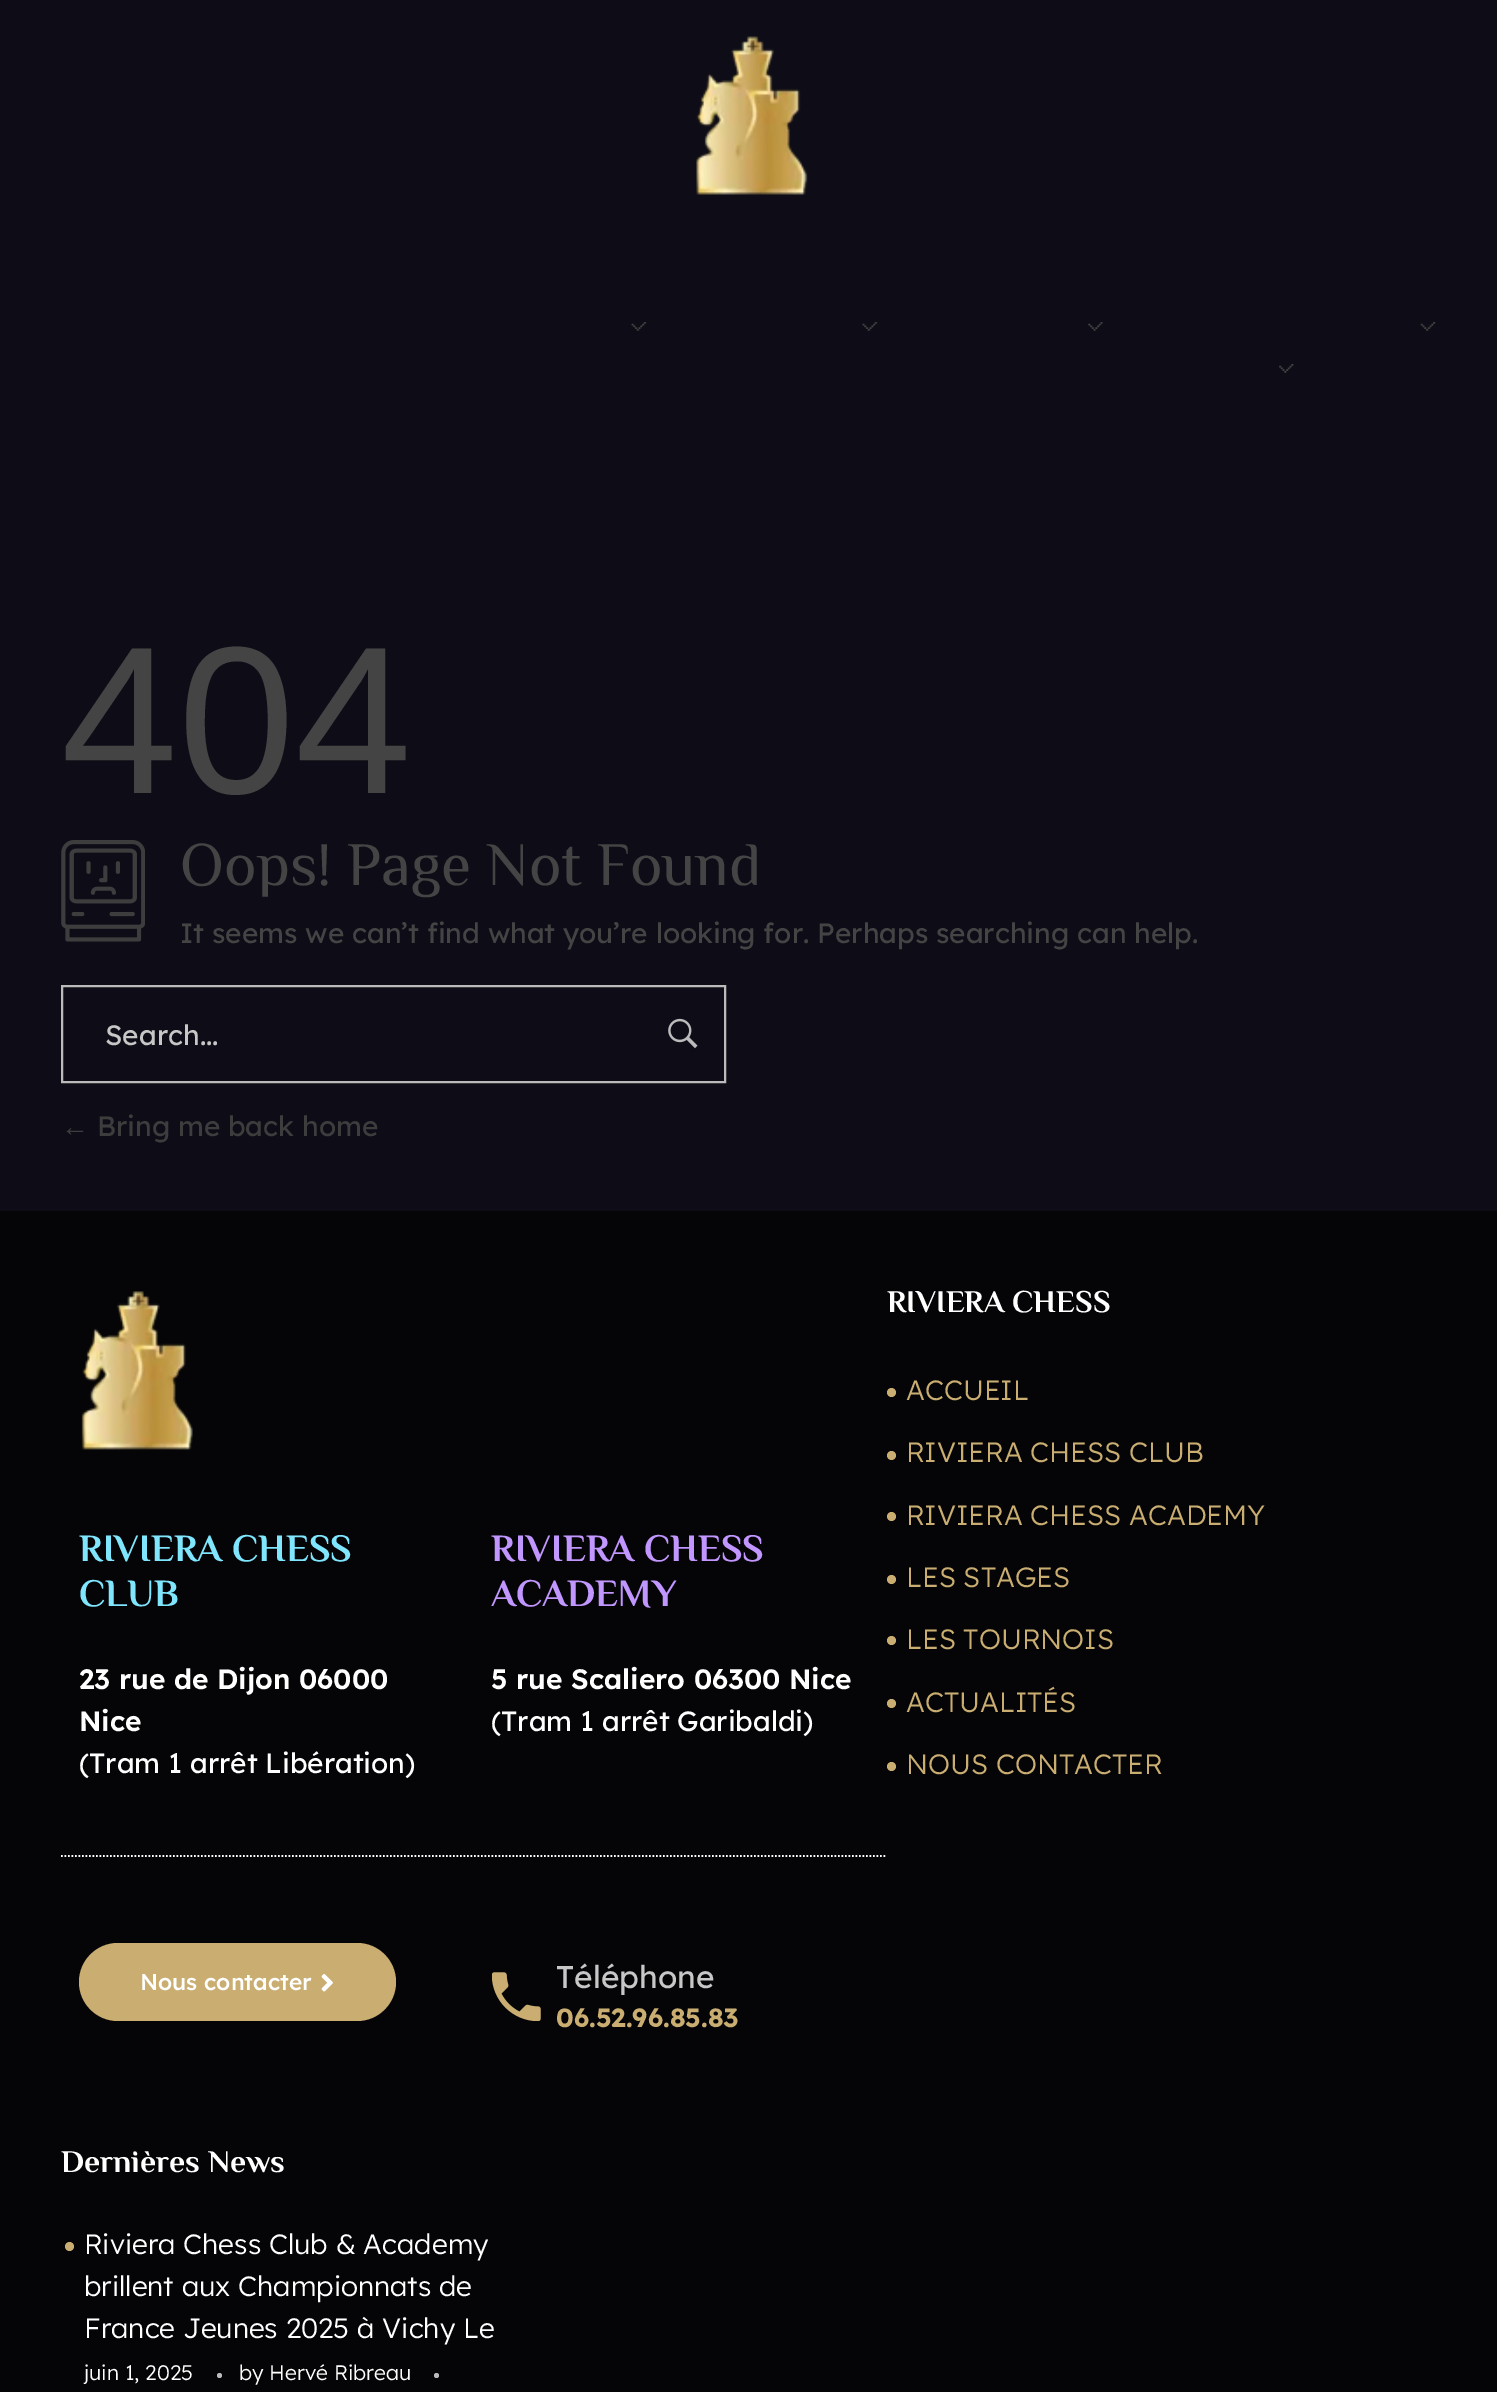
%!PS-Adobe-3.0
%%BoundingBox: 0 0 1497 2392
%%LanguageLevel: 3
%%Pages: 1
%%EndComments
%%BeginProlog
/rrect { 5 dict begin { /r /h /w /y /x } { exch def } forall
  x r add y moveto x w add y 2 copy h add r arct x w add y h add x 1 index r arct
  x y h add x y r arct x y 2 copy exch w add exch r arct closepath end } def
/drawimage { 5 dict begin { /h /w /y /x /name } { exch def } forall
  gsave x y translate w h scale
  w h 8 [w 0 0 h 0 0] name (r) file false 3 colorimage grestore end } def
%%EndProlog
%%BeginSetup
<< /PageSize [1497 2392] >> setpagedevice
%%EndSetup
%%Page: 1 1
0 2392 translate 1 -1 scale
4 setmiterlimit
0.055 0.051 0.09 setrgbcolor
0 0 1497 2392 rectfill
(images/1.raw) 696 36 112 159 drawimage
(images/2.raw) 631 322 16 9 drawimage
(images/2.raw) 862 322 16 9 drawimage
(images/3.raw) 1088 322 15 9 drawimage
(images/4.raw) 1420 322 16 9 drawimage
(images/5.raw) 1279 364 15 9 drawimage
(images/6.raw) 61 840 84 102 drawimage
0.733 setgray
2 setlinewidth
62 986 663 96 rectstroke
(images/7.raw) 668 1018 30 31 drawimage
0.02 0.02 0.027 setrgbcolor
0 1211 1497 1181 rectfill
(images/8.raw) 81 1291 112 159 drawimage
1 setgray
1.8 setlinewidth
[1.75 1.75] 0 setdash
newpath 61 1856 moveto 887 1856 lineto stroke
0.788 0.678 0.443 setrgbcolor
79 1943 317 78 39 rrect fill
(images/9.raw) 321 1974 12 18 drawimage
(images/10.raw) 492 1972 49 49 drawimage
newpath 891.5 1392.5 4.5 0 360 arc closepath fill
newpath 891.5 1455.5 4.5 0 360 arc closepath fill
newpath 891.5 1516.5 4.5 0 360 arc closepath fill
newpath 891.5 1579.5 4.5 0 360 arc closepath fill
newpath 891.5 1640.5 4.5 0 360 arc closepath fill
newpath 891.5 1703.5 4.5 0 360 arc closepath fill
newpath 891.5 1766.5 4.5 0 360 arc closepath fill
newpath 69.5 2246.5 4.5 0 360 arc closepath fill
0.733 setgray
newpath 219.5 2375.5 2.5 0 360 arc closepath fill
newpath 436.5 2375.5 2.5 0 360 arc closepath fill
/LiberationSans-Regular [210 0 0 -210 0 0] selectfont
0.267 setgray
61 793 moveto (404) show
/Philosopher-Regular [61.6 0 0 -61.6 0 0] selectfont
180 885 moveto (Oops! Page Not Found) show
/Lexend-Regular [28 0 0 -28 0 0] selectfont
180 943 moveto (It seems we can’t find what you’re looking for. Perhaps searching can help.) show
0.78 setgray
105 1045 moveto (Search...) show
/LiberationSans-Regular [28 0 0 -28 0 0] selectfont
0.239 setgray
61 1136 moveto (←) show
/Lexend-Regular [28 0 0 -28 0 0] selectfont
97 1136 moveto (Bring me back home) show
/Philosopher-Bold [38.5 0 0 -38.5 0 0] selectfont
0.498 0.902 0.996 setrgbcolor
79 1561 moveto (RIVIERA CHESS) show
79 1606 moveto (CLUB) show
/Lexend-SemiBold [28 0 0 -28 0 0] selectfont
1 setgray
79 1689 moveto (23 rue de Dijon 06000) show
79 1731 moveto (Nice) show
/Lexend-Regular [28 0 0 -28 0 0] selectfont
79 1773 moveto (\(Tram 1 arrêt Libération\)) show
/Philosopher-Bold [38.5 0 0 -38.5 0 0] selectfont
0.757 0.588 1 setrgbcolor
491 1561 moveto (RIVIERA CHESS) show
491 1606 moveto (ACADEMY) show
/Lexend-SemiBold [28 0 0 -28 0 0] selectfont
1 setgray
491 1689 moveto (5 rue Scaliero 06300 Nice) show
/Lexend-Regular [28 0 0 -28 0 0] selectfont
491 1731 moveto (\(Tram 1 arrêt Garibaldi\)) show
/Lexend-Medium [22.75 0 0 -22.75 0 0] selectfont
140 1990 moveto (Nous contacter) show
/Lexend-Regular [31.5 0 0 -31.5 0 0] selectfont
0.78 setgray
556 1988 moveto (Téléphone) show
/Lexend-Bold [26.25 0 0 -26.25 0 0] selectfont
0.788 0.678 0.443 setrgbcolor
556 2027 moveto (06.52.96.85.83) show
/Philosopher-Bold [31.5 0 0 -31.5 0 0] selectfont
1 setgray
887 1312 moveto (RIVIERA CHESS) show
/Lexend-Light [28 0 0 -28 0 0] selectfont
0.788 0.678 0.443 setrgbcolor
906 1400 moveto (ACCUEIL) show
906 1462 moveto (RIVIERA CHESS CLUB) show
906 1525 moveto (RIVIERA CHESS ACADEMY) show
906 1587 moveto (LES STAGES) show
906 1649 moveto (LES TOURNOIS) show
906 1712 moveto (ACTUALITÉS) show
906 1774 moveto (NOUS CONTACTER) show
/Philosopher-Bold [31.5 0 0 -31.5 0 0] selectfont
1 setgray
61 2172 moveto (Dernières News) show
/Lexend-Light [28 0 0 -28 0 0] selectfont
84 2254 moveto (Riviera Chess Club & Academy) show
84 2296 moveto (brillent aux Championnats de) show
84 2338 moveto (France Jeunes 2025 à Vichy Le) show
/Lexend-Light [21 0 0 -21 0 0] selectfont
84 2380 moveto (juin 1, 2025) show
239 2380 moveto (by Hervé Ribreau) show
showpage
%%EOF
